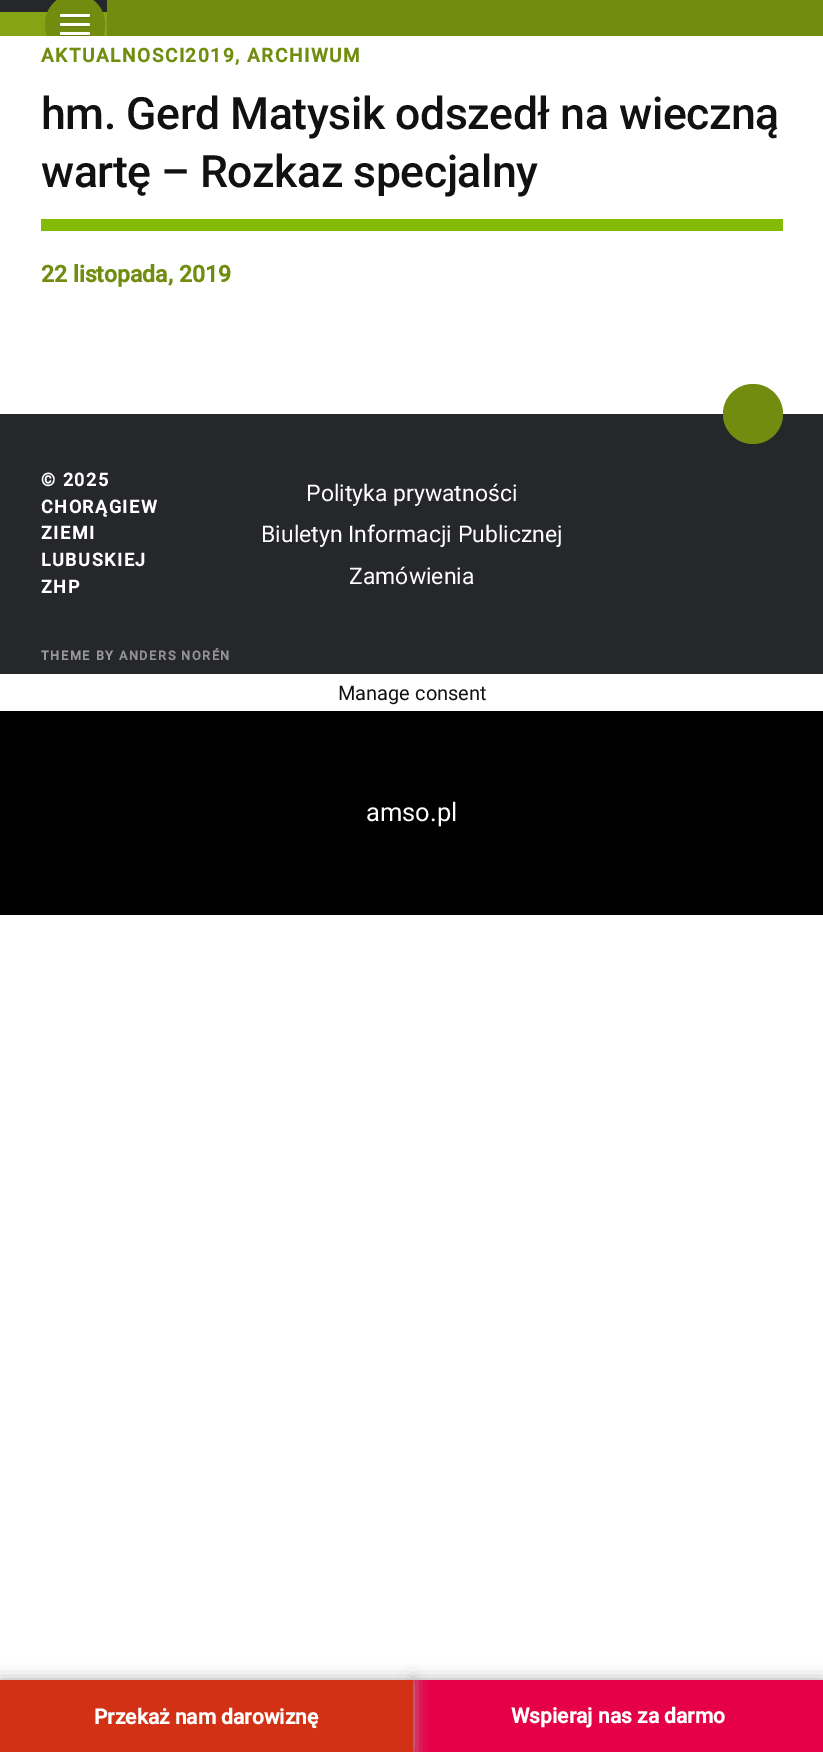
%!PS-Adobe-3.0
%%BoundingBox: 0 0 823 1752
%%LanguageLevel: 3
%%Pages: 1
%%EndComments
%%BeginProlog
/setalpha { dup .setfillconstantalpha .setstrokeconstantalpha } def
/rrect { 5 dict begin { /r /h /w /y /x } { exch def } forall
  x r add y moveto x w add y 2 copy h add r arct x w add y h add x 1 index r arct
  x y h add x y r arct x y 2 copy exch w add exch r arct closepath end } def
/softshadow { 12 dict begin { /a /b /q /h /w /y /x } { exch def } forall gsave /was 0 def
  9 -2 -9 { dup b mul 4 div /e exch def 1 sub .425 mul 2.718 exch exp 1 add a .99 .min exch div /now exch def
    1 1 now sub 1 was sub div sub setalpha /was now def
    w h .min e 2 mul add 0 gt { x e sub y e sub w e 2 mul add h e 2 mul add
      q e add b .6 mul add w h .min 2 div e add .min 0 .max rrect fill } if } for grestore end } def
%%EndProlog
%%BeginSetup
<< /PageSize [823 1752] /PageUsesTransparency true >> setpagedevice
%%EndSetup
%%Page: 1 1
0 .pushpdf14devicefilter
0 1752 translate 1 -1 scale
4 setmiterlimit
1 setgray
0 0 823 1752 rectfill
0.522 0.639 0.078 setrgbcolor
0 12 107 24 rectfill
0.149 0.153 0.169 setrgbcolor
0 0 107 12 rectfill
0.1 setalpha
0 setgray
newpath 45 25 moveto 45 32 47 38 50 44 curveto 67 69 106 56 105 25 curveto 103 63 47 63 45 25 curveto closepath fill
1 setalpha
0.443 0.549 0.059 setrgbcolor
newpath 75 24 30 0 360 arc closepath fill
0.4 0.494 0.055 setrgbcolor
newpath 60 15.5 moveto 58.5 18.5 63 18 66 18 curveto 84 18 lineto 87 18 91.5 18.5 90 15.5 curveto 88.5 16.5 lineto 61.5 16.5 lineto closepath fill
1 setgray
60 14 30 3 1.5 rrect fill
0.4 0.494 0.055 setrgbcolor
newpath 60 24.5 moveto 58.5 27.5 63 27 66 27 curveto 84 27 lineto 87 27 91.5 27.5 90 24.5 curveto 88.5 25.5 lineto 61.5 25.5 lineto closepath fill
1 setgray
60 23 30 3 1.5 rrect fill
0.4 0.494 0.055 setrgbcolor
newpath 60 33.5 moveto 58.5 36.5 63 36 66 36 curveto 84 36 lineto 87 36 91.5 36.5 90 33.5 curveto 88.5 34.5 lineto 61.5 34.5 lineto closepath fill
1 setgray
60 32 30 3 1.5 rrect fill
0.443 0.549 0.059 setrgbcolor
107 0 716 36 rectfill
1 setgray
47 36 57 22 rectfill
0.514 0.733 0.031 setrgbcolor
41 219 742 12 rectfill
0.149 0.153 0.169 setrgbcolor
0 414 823 260 rectfill
0.443 0.549 0.059 setrgbcolor
newpath 753 414 30 0 360 arc closepath fill
0 setgray
0 711 823 204 rectfill
0.667 setgray
413 1680 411 72 0 7.5 1 softshadow
0.898 0 0.282 setrgbcolor
413 1680 410 72 rectfill
0.667 setgray
0 1680 413 72 0 7.5 1 softshadow
0.827 0.192 0.082 setrgbcolor
0 1680 413 72 rectfill
/Roboto-Bold [19.1 0 0 -19.1 0 0] selectfont
0.443 0.549 0.059 setrgbcolor
41 62 moveto 1.5 0 (AKTUALNOSCI2019, ARCHIWUM) ashow
/Roboto-Medium [44.6 0 0 -44.6 0 0] selectfont
0.067 setgray
41 129 moveto -0.45 0 (hm. Gerd Matysik odszedł na wieczną) ashow
41 187 moveto -0.45 0 (wartę – Rozkaz specjalny) ashow
/Roboto-Bold [23 0 0 -23 0 0] selectfont
0.443 0.549 0.059 setrgbcolor
41 282 moveto (22 listopada, 2019) show
/Roboto-Bold [18 0 0 -18 0 0] selectfont
1 setgray
41 486 moveto 1.5 0 (© 2025) ashow
41 513 moveto 1.5 0 (CHORĄGIEW) ashow
41 539 moveto 1.5 0 (ZIEMI) ashow
41 566 moveto 1.5 0 (LUBUSKIEJ) ashow
41 593 moveto 1.5 0 (ZHP) ashow
/Roboto-Regular [23 0 0 -23 0 0] selectfont
306 501 moveto (Polityka prywatności) show
261 542 moveto (Biuletyn Informacji Publicznej) show
349 584 moveto (Zamówienia) show
/Roboto-Bold [12.75 0 0 -12.75 0 0] selectfont
0.6 setgray
41 660 moveto 1.5 0 (THEME BY) ashow
0.576 0.576 0.584 setrgbcolor
119 660 moveto 1.5 0 (ANDERS NORÉN) ashow
/Roboto-Regular [20 0 0 -20 0 0] selectfont
0.067 setgray
338 700 moveto (Manage consent) show
/Roboto-Regular [25.5 0 0 -25.5 0 0] selectfont
1 setgray
366 821 moveto (amso.pl) show
/Roboto-Bold [21 0 0 -21 0 0] selectfont
94 1724 moveto (Przekaż nam darowiznę) show
511 1723 moveto (Wspieraj nas za darmo) show
.poppdf14devicefilter showpage
%%EOF
